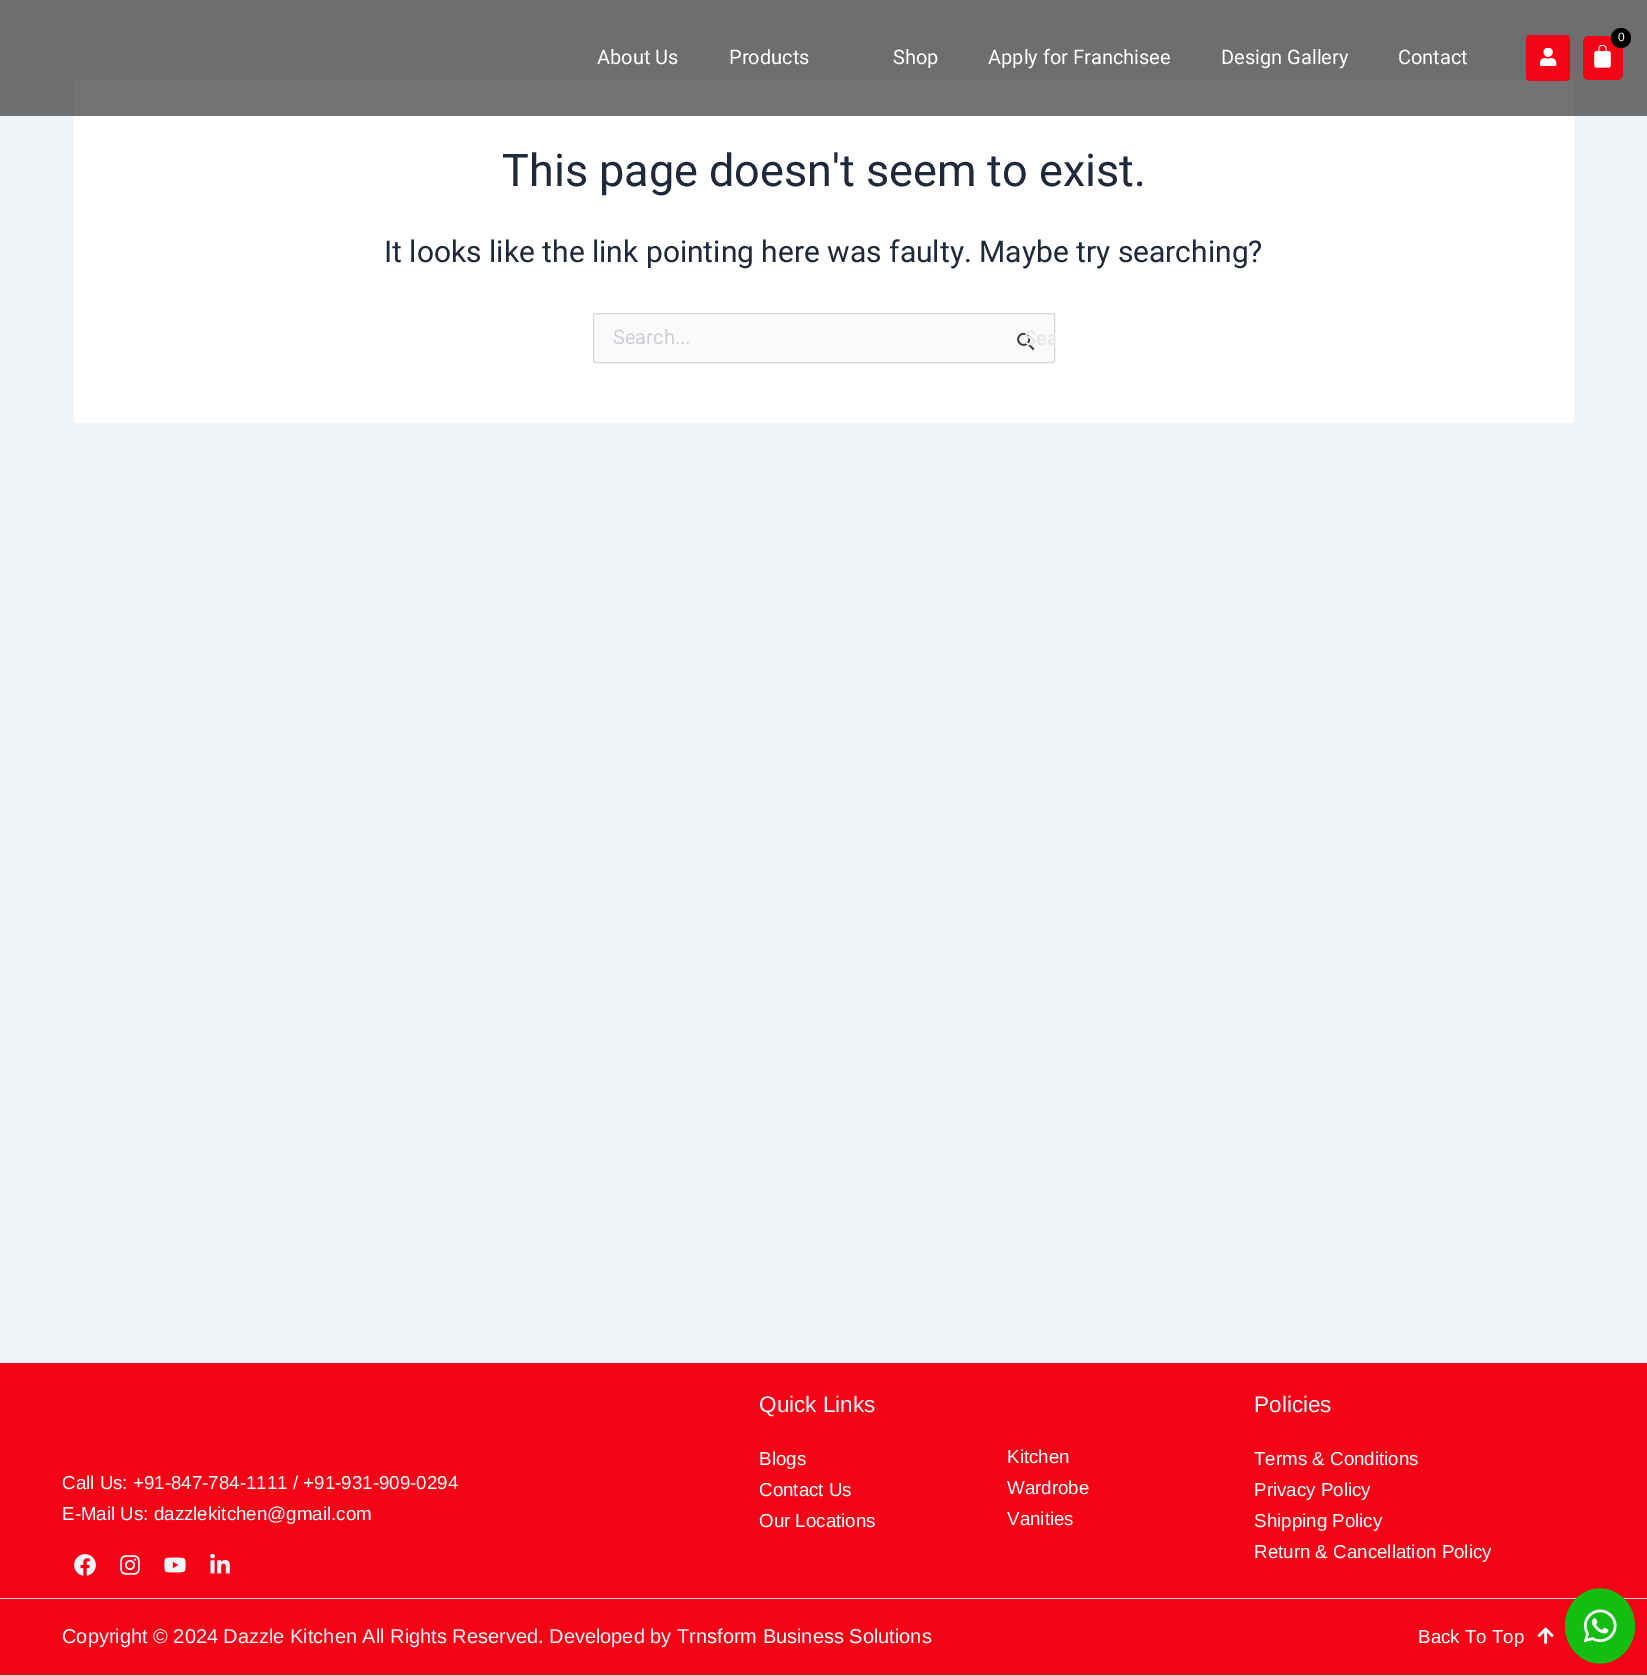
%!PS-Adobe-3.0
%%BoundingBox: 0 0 1647 1676
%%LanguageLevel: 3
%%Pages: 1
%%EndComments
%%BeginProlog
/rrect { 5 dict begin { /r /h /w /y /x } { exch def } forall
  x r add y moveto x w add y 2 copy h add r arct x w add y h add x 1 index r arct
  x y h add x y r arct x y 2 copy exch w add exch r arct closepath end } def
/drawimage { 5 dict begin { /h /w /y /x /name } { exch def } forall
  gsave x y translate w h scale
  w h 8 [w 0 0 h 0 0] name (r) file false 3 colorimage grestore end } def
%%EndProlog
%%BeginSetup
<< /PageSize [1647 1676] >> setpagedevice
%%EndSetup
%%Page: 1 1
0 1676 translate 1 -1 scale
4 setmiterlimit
0.941 0.961 0.98 setrgbcolor
0 0 1647 1676 rectfill
0.424 0.431 0.439 setrgbcolor
0 0 1647 116 rectfill
0.451 setgray
74 80 1500 36 rectfill
0.957 0.008 0.082 setrgbcolor
1526 35 44 46 4 rrect fill
(images/1.raw) 1539 48 18 18 drawimage
1583 36 40 44 6 rrect fill
0 setgray
newpath 1621 38 10 0 360 arc closepath fill
(images/2.raw) 1594 44 17 24 drawimage
1 setgray
74 116 1500 307 rectfill
0.98 setgray
593.5 313.5 461 49 2 rrect gsave fill grestore
0.82 0.835 0.859 setrgbcolor
stroke
(images/3.raw) 1017 332 17 19 drawimage
0.957 0.008 0.082 setrgbcolor
0 1363 1647 235 rectfill
0.827 setgray
0 1598 1647 1 rectfill
(images/4.raw) 74 1554 22 22 drawimage
(images/5.raw) 120 1555 20 20 drawimage
(images/6.raw) 164 1557 22 16 drawimage
(images/7.raw) 210 1554 20 20 drawimage
0.957 0.008 0.082 setrgbcolor
0 1599 1647 76 rectfill
0.827 setgray
0 1675 1647 1 rectfill
(images/8.raw) 1537 1627 17 17 drawimage
0.075 0.745 0.075 setrgbcolor
newpath 1600 1588.5 moveto 1619.5 1588.5 1635 1605.5 1635 1626 curveto 1635 1646.5 1619.5 1663.5 1600 1663.5 curveto 1580.5 1663.5 1565 1646.5 1565 1626 curveto 1565 1605.5 1580.5 1588.5 1600 1588.5 curveto closepath fill
(images/9.raw) 1583 1609 34 34 drawimage
/Roboto-Regular [20 0 0 -20 0 0] selectfont
1 setgray
597 64 moveto (About Us) show
729 64 moveto (Products) show
893 64 moveto (Shop) show
988 64 moveto (Apply for Franchisee) show
1221 64 moveto (Design Gallery) show
1398 64 moveto (Contact) show
/LiberationSans-Regular [12 0 0 -12 0 0] selectfont
1618 41 moveto (0) show
/Roboto-Regular [45 0 0 -45 0 0] selectfont
0.118 0.161 0.231 setrgbcolor
502 186 moveto (This page doesn't seem to exist.) show
/Roboto-Regular [30 0 0 -30 0 0] selectfont
384 262 moveto (It looks like the link pointing here was faulty. Maybe try searching?) show
/Roboto-Regular [20 0 0 -20 0 0] selectfont
0.796 0.812 0.835 setrgbcolor
613 344 moveto (Search...) show
gsave
999 313 56 52 2.5 rrect clip newpath
/Roboto-Medium [20 0 0 -20 0 0] selectfont
0.902 setgray
1024 345 moveto (Sea) show
grestore
/LiberationSans-Regular [18.75 0 0 -18.75 0 0] selectfont
1 setgray
62 1489 moveto (Call Us: +91-847-784-1111 / +91-931-909-0294) show
62 1520 moveto (E-Mail Us: dazzlekitchen@gmail.com) show
/LiberationSans-Regular [22.5 0 0 -22.5 0 0] selectfont
0.941 0.961 0.98 setrgbcolor
759 1412 moveto (Quick Links) show
/LiberationSans-Regular [18.75 0 0 -18.75 0 0] selectfont
1 setgray
759 1465 moveto (Blogs) show
759 1496 moveto (Contact Us) show
759 1527 moveto (Our Locations) show
1007 1463 moveto (Kitchen) show
1007 1494 moveto (Wardrobe) show
1007 1525 moveto (Vanities) show
/LiberationSans-Regular [22.5 0 0 -22.5 0 0] selectfont
0.941 0.961 0.98 setrgbcolor
1254 1412 moveto (Policies) show
/LiberationSans-Regular [18.75 0 0 -18.75 0 0] selectfont
1 setgray
1254 1465 moveto (Terms & Conditions) show
1254 1496 moveto (Privacy Policy) show
1254 1527 moveto (Shipping Policy) show
1254 1558 moveto (Return & Cancellation Policy) show
/LiberationSans-Regular [20 0 0 -20 0 0] selectfont
0.941 0.961 0.98 setrgbcolor
62 1643 moveto (Copyright © 2024 Dazzle Kitchen All Rights Reserved. Developed by) show
1 setgray
677 1643 moveto (Trnsform Business Solutions) show
/LiberationSans-Regular [18.75 0 0 -18.75 0 0] selectfont
1418 1643 moveto (Back To Top) show
showpage
%%EOF
